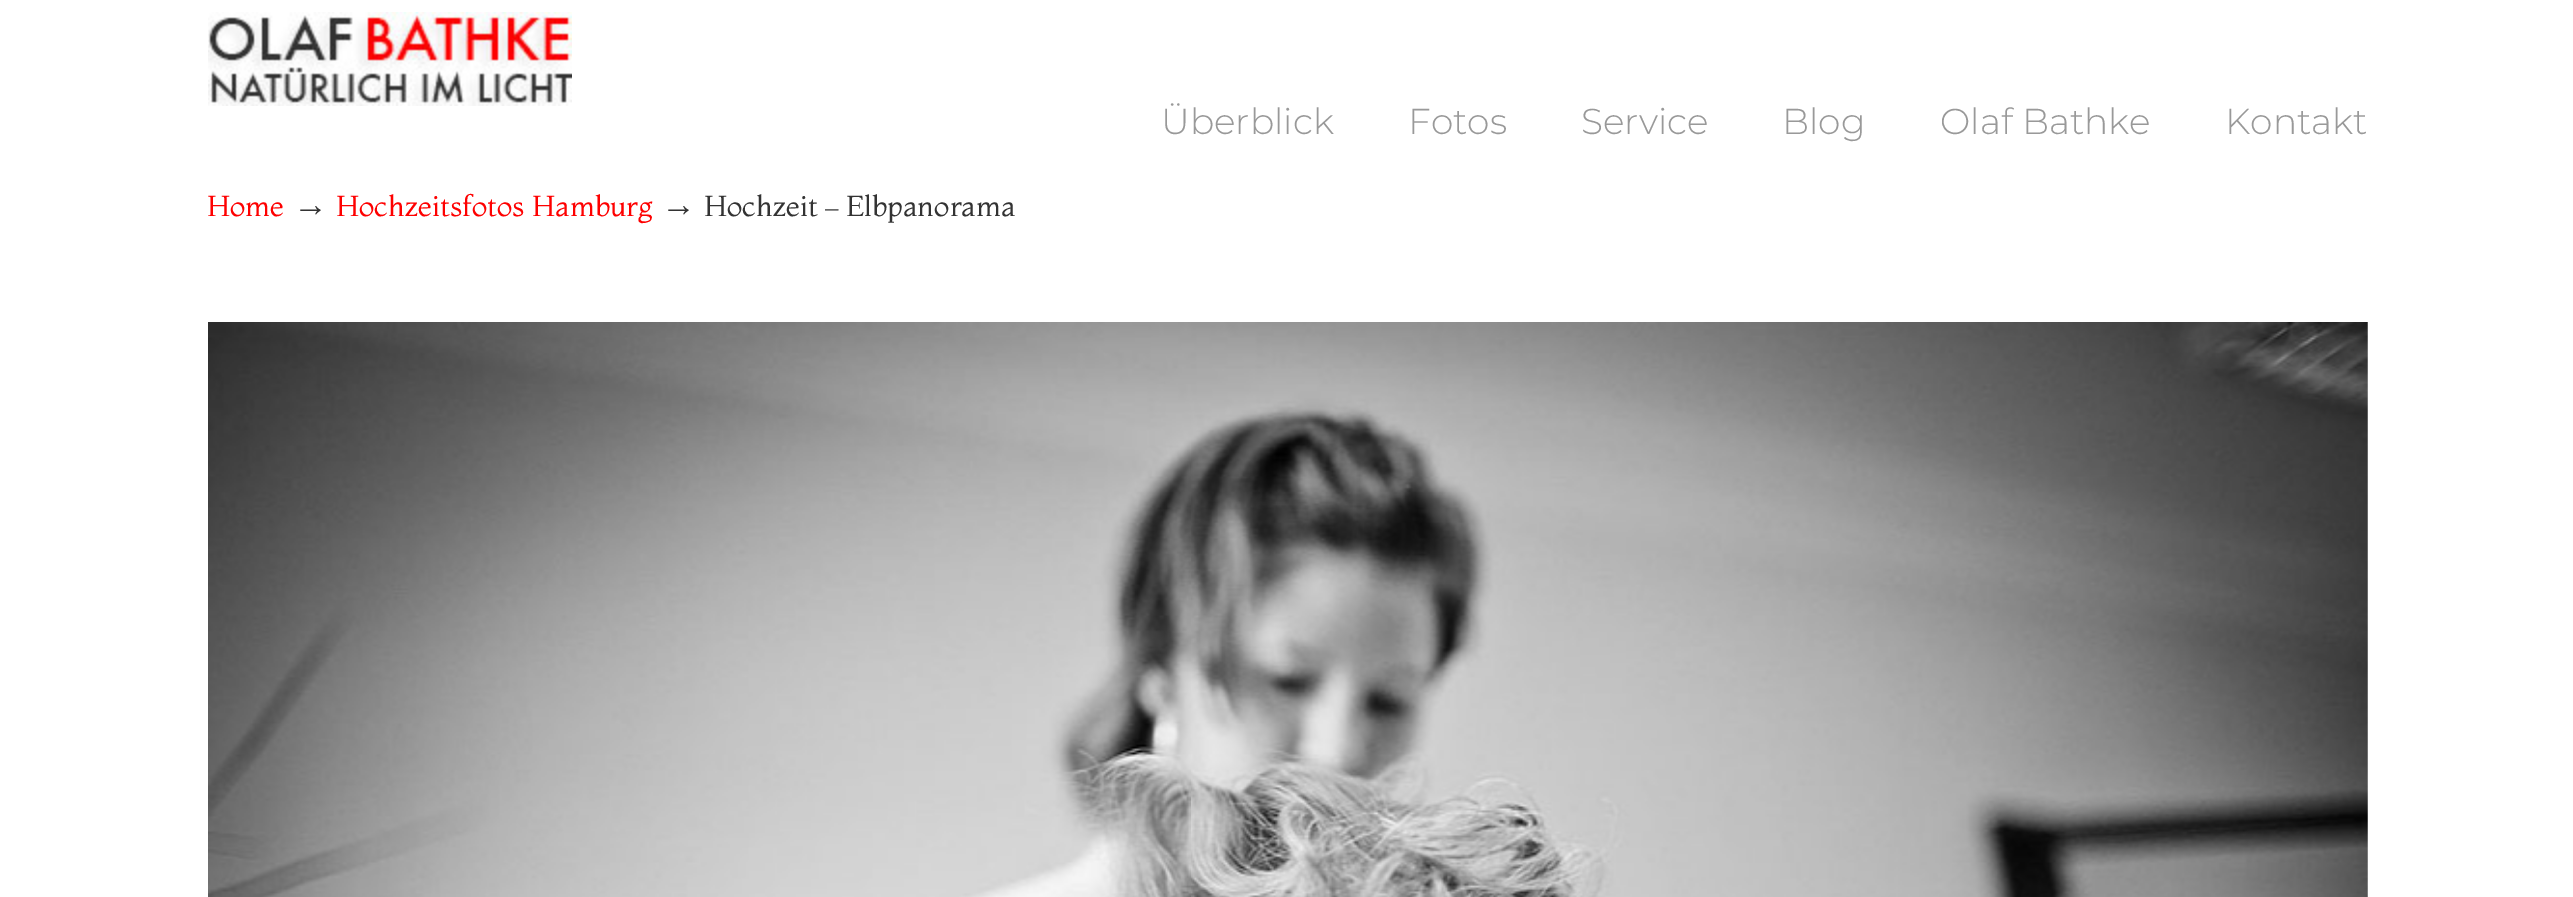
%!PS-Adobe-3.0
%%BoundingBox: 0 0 2573 897
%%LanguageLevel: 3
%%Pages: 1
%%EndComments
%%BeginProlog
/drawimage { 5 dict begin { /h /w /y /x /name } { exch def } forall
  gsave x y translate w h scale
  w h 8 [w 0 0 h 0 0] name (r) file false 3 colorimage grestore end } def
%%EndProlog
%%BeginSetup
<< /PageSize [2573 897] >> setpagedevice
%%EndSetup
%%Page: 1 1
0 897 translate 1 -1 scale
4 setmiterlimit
1 setgray
0 0 2573 897 rectfill
(images/1.raw) 208 12 364 94 drawimage
(images/2.raw) 208 322 2160 575 drawimage
/Montserrat-Light [36 0 0 -36 0 0] selectfont
0.6 setgray
1161 134 moveto (Überblick) show
1408 134 moveto (Fotos) show
1581 134 moveto (Service) show
1782 134 moveto (Blog) show
1940 134 moveto (Olaf Bathke) show
2225 134 moveto (Kontakt) show
/Montaga-Regular [28.75 0 0 -28.75 0 0] selectfont
0.996 0 0 setrgbcolor
207 216 moveto (Home) show
/LiberationSerif-Regular [35 0 0 -35 0 0] selectfont
0.2 setgray
293 216 moveto (→) show
/Montaga-Regular [28.75 0 0 -28.75 0 0] selectfont
0.996 0 0 setrgbcolor
336 216 moveto (Hochzeitsfotos Hamburg) show
/LiberationSerif-Regular [35 0 0 -35 0 0] selectfont
0.2 setgray
661 216 moveto (→) show
/Montaga-Regular [28.75 0 0 -28.75 0 0] selectfont
704 216 moveto (Hochzeit – Elbpanorama) show
showpage
%%EOF
